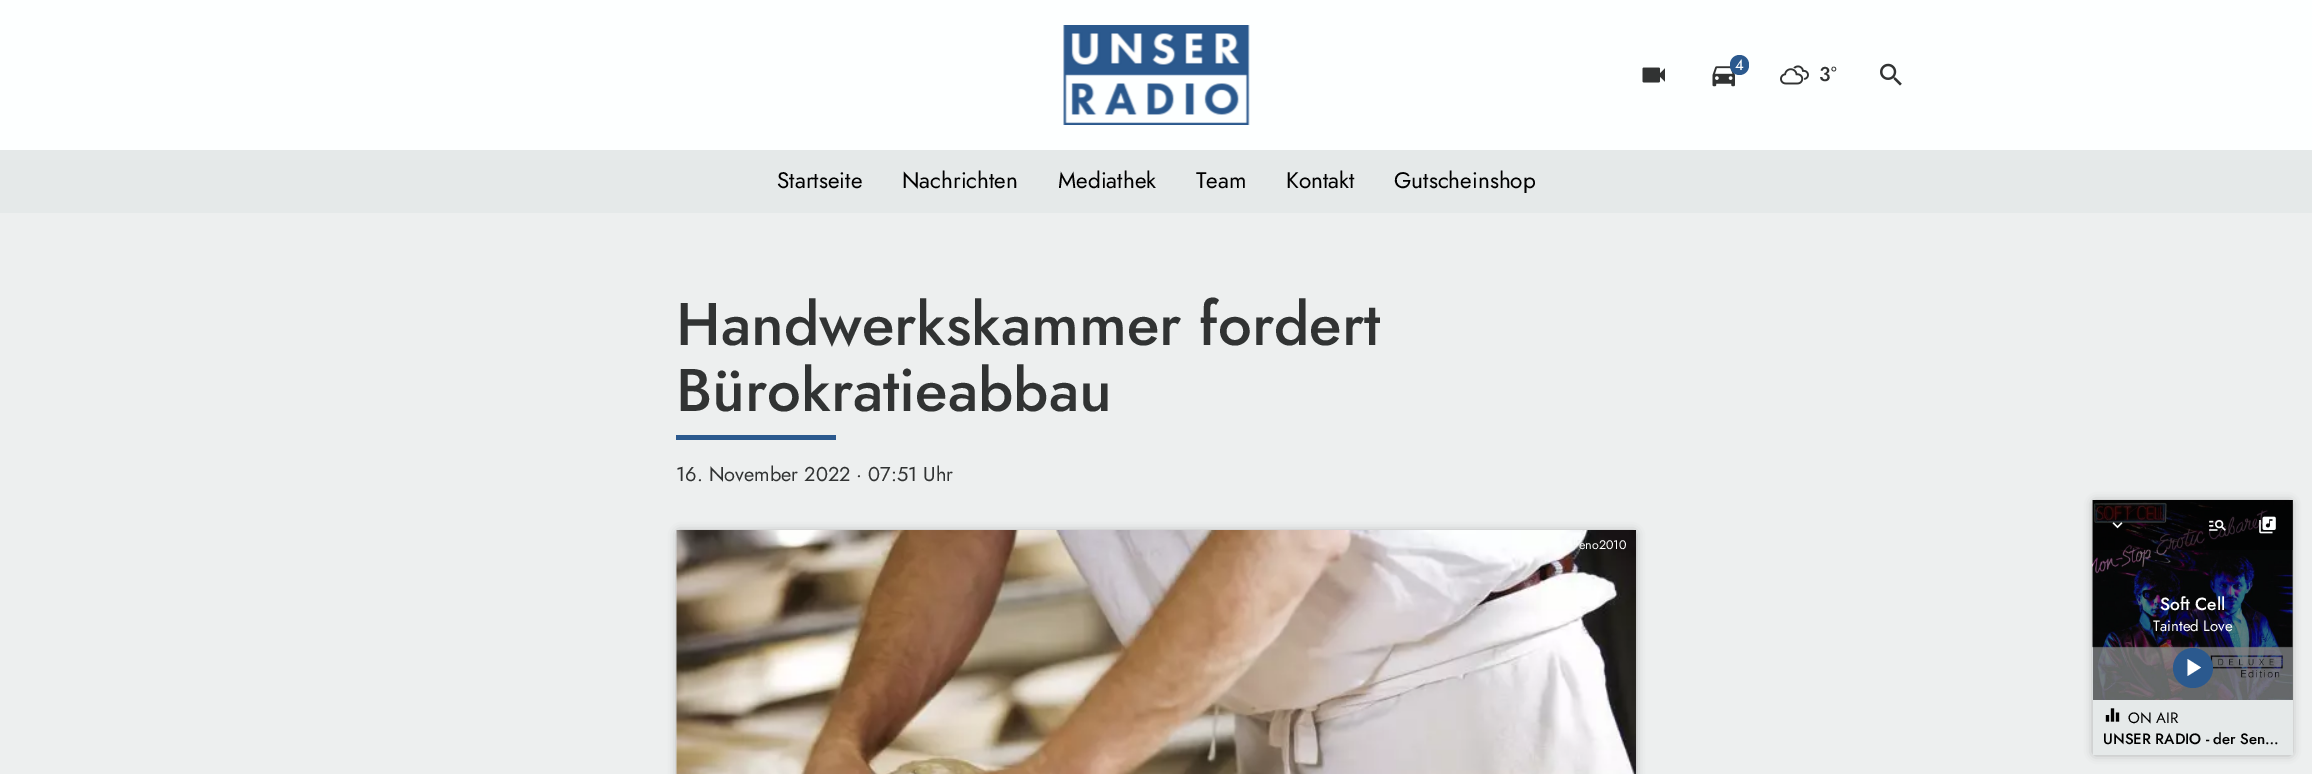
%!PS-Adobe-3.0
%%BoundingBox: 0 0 2312 774
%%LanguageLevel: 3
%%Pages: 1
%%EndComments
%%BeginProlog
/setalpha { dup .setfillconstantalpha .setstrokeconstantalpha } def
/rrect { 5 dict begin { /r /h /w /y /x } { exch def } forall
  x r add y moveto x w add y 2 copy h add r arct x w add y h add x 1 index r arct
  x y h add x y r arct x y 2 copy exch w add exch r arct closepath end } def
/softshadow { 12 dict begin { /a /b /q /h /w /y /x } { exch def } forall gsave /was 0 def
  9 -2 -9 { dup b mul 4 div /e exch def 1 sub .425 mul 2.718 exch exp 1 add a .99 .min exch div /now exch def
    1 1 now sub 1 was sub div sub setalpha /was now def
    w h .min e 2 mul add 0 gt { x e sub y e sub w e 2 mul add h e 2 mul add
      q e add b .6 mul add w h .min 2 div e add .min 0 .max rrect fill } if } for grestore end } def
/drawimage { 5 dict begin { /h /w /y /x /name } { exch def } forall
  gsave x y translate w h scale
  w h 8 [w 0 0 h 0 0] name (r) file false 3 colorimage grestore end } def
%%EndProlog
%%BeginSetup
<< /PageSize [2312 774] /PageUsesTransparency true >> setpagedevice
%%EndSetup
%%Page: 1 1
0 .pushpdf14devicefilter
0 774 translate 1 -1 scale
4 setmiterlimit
0.992 1 1 setrgbcolor
0 0 2312 774 rectfill
(images/1.raw) 1063 25 187 100 drawimage
(images/2.raw) 1712 66 23 21 drawimage
0.169 0.349 0.557 setrgbcolor
1730 55 19 20 9.5 rrect fill
(images/3.raw) 1642 67 23 16 drawimage
(images/4.raw) 1780 65 29 20 drawimage
(images/5.raw) 1880 63 22 23 drawimage
0.898 0.914 0.914 setrgbcolor
0 150 2312 63 rectfill
0.929 0.937 0.937 setrgbcolor
0 213 2312 561 rectfill
0.169 0.349 0.557 setrgbcolor
676 435 160 5 rectfill
0 setgray
679 533 955 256 0 5 0.4 softshadow
(images/6.raw) 676 530 961 244 drawimage
2095 503 195 250 0 5 0.4 softshadow
0.91 0.922 0.922 setrgbcolor
2292 500 1 200 rectfill
(images/10.raw) 2092 500 201 200 drawimage
0.5 setalpha
0 setgray
2093 500 200 200 rectfill
2093 500 200 50 rectfill
1 setalpha
(images/7.raw) 2112 522 11 7 drawimage
(images/8.raw) 2209 520 17 11 drawimage
(images/9.raw) 2259 516 17 18 drawimage
0.169 0.349 0.557 setrgbcolor
newpath 2193 668 20 0 360 arc closepath fill
1 setgray
newpath 2187.5 659 moveto 2201 667.5 lineto 2187.5 676 lineto closepath fill
0.898 0.914 0.914 setrgbcolor
2093 700 200 55 rectfill
(images/11.raw) 2105 708 15 14 drawimage
/Jost-Regular [15 0 0 -15 0 0] selectfont
1 setgray
1735 70 moveto (4) show
/Jost-Medium [20 0 0 -20 0 0] selectfont
0.192 0.2 0.2 setrgbcolor
1819 81 moveto (3°) show
/Jost-Regular [22.5 0 0 -22.5 0 0] selectfont
0 setgray
777 188 moveto (Startseite) show
902 188 moveto (Nachrichten) show
1058 188 moveto (Mediathek) show
1196 188 moveto (Team) show
1286 188 moveto (Kontakt) show
1394 188 moveto (Gutscheinshop) show
/Jost-Medium [60 0 0 -60 0 0] selectfont
0.192 0.2 0.2 setrgbcolor
676 345 moveto (Handwerkskammer fordert) show
676 411 moveto (Bürokratieabbau) show
/Jost-Regular [20 0 0 -20 0 0] selectfont
676 481 moveto (16. November 2022 · 07:51 Uhr) show
/Jost-Regular [12.5 0 0 -12.5 0 0] selectfont
1 setgray
1579 549 moveto (eno2010) show
/Jost-Medium [17.5 0 0 -17.5 0 0] selectfont
2160 610 moveto (Soft Cell) show
/Jost-Regular [15 0 0 -15 0 0] selectfont
2153 631 moveto (Tainted Love) show
0 setgray
2128 723 moveto (ON AIR) show
/Jost-Medium [15 0 0 -15 0 0] selectfont
2103 744 moveto (UNSER RADIO - der Sen…) show
.poppdf14devicefilter showpage
%%EOF
